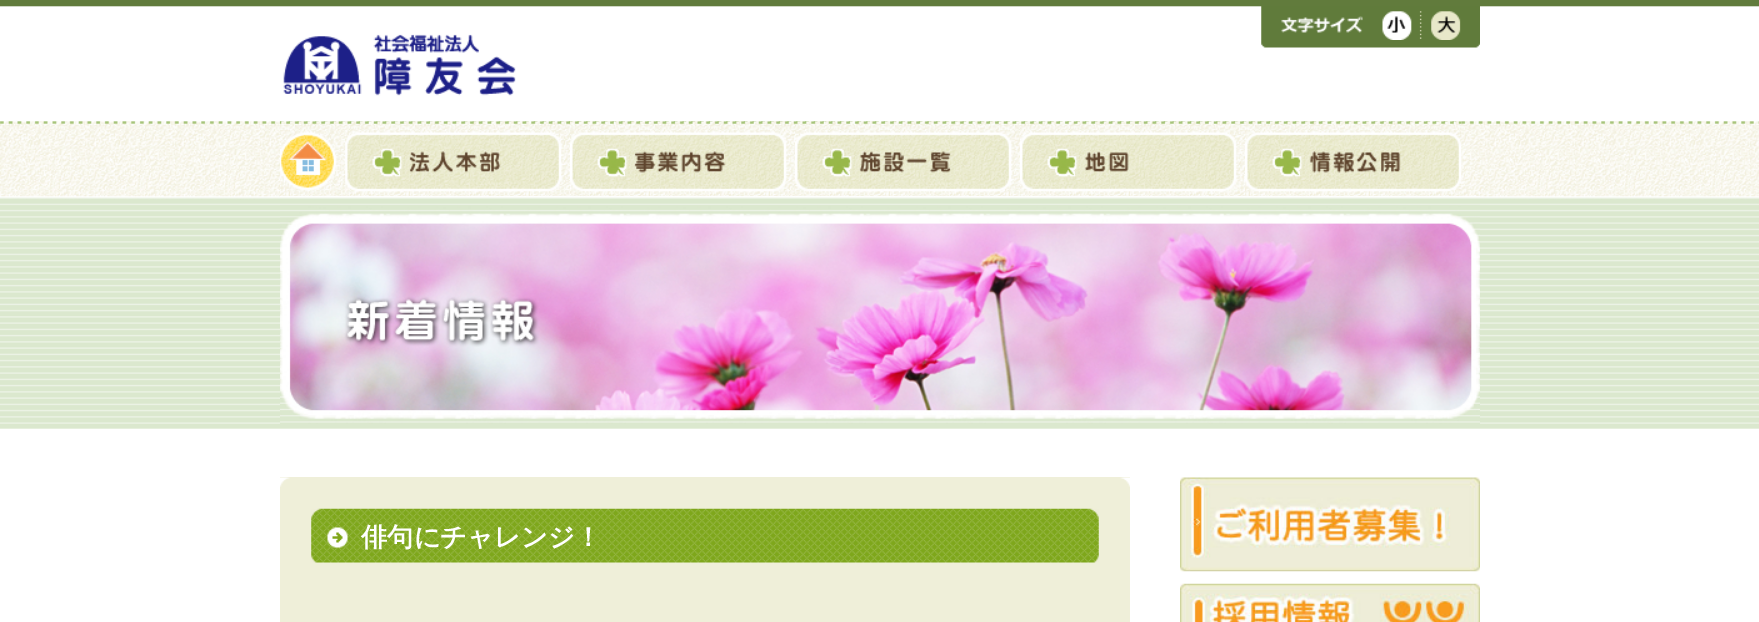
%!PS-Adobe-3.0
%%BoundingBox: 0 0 1759 622
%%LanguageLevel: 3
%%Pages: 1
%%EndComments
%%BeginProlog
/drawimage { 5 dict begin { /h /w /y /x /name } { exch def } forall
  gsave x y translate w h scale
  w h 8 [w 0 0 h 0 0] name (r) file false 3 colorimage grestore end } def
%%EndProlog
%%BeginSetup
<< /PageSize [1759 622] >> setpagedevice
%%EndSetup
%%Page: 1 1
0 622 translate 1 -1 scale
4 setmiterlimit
1 setgray
0 0 1759 622 rectfill
(images/1.raw) 0 0 1759 429 drawimage
(images/2.raw) 1261 6 219 42 drawimage
(images/3.raw) 1382 11 30 29 drawimage
(images/4.raw) 1431 11 30 29 drawimage
(images/5.raw) 280 34 249 88 drawimage
(images/6.raw) 280 121 62 75 drawimage
(images/7.raw) 341 121 229 75 drawimage
(images/8.raw) 570 121 225 75 drawimage
(images/9.raw) 795 121 225 75 drawimage
(images/10.raw) 1020 121 225 75 drawimage
(images/11.raw) 1245 121 217 75 drawimage
(images/12.raw) 280 196 1200 228 drawimage
0.937 0.937 0.851 setrgbcolor
280 477 850 145 rectfill
(images/13.raw) 280 477 850 10 drawimage
(images/14.raw) 311 508 788 55 drawimage
(images/15.raw) 1180 477 300 95 drawimage
(images/16.raw) 1180 583 300 39 drawimage
/WenQuanYiZenHei-Bold [26.25 0 0 -26.25 0 0] selectfont
1 setgray
361 546 moveto (俳句にチャレンジ！) show
showpage
%%EOF
